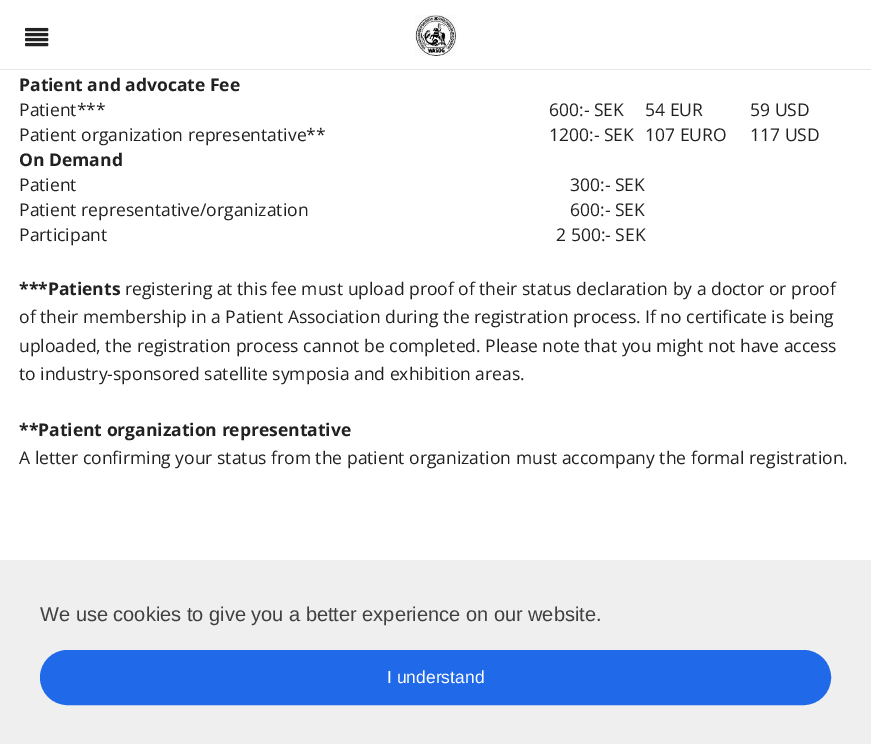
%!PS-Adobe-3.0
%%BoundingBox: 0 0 871 744
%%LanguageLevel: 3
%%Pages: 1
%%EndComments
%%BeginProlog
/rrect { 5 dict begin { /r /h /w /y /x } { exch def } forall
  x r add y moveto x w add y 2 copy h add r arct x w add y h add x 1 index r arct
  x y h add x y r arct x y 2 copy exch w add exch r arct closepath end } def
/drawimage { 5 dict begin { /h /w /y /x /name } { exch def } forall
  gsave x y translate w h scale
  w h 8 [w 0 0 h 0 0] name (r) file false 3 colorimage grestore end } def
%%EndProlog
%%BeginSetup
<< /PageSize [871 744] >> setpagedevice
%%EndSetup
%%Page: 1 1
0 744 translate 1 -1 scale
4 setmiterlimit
1 setgray
0 0 871 744 rectfill
0.902 setgray
0 69 871 1 rectfill
(images/1.raw) 25 27 24 20 drawimage
(images/2.raw) 415 15 42 42 drawimage
0.937 setgray
0 560 871 184 rectfill
0.125 0.416 0.918 setrgbcolor
41.5 651.5 788 52 26 rrect gsave fill grestore
3 setlinewidth
stroke
/OpenSans-Bold [17.5 0 0 -17.5 0 0] selectfont
0.129 setgray
19 91 moveto (Patient and advocate Fee) show
/OpenSans-Regular [17.5 0 0 -17.5 0 0] selectfont
19 116 moveto (Patient***) show
549 116 moveto (600:- SEK) show
645 116 moveto (54 EUR) show
750 116 moveto (59 USD) show
19 141 moveto (Patient organization representative**) show
549 141 moveto (1200:- SEK) show
645 141 moveto (107 EURO) show
750 141 moveto (117 USD) show
/OpenSans-Bold [17.5 0 0 -17.5 0 0] selectfont
19 166 moveto (On Demand) show
/OpenSans-Regular [17.5 0 0 -17.5 0 0] selectfont
19 191 moveto (Patient) show
570 191 moveto (300:- SEK) show
19 216 moveto (Patient representative/organization) show
570 216 moveto (600:- SEK) show
19 241 moveto (Participant) show
556 241 moveto (2 500:- SEK) show
/OpenSans-Bold [17.5 0 0 -17.5 0 0] selectfont
19 295 moveto (***Patients) show
/OpenSans-Regular [17.5 0 0 -17.5 0 0] selectfont
125 295 moveto (registering at this fee must upload proof of their status declaration by a doctor or proof) show
19 323 moveto (of their membership in a Patient Association during the registration process. If no certificate is being) show
19 352 moveto (uploaded, the registration process cannot be completed. Please note that you might not have access) show
19 380 moveto (to industry-sponsored satellite symposia and exhibition areas.) show
/OpenSans-Bold [17.5 0 0 -17.5 0 0] selectfont
19 436 moveto (**Patient organization representative) show
/OpenSans-Regular [17.5 0 0 -17.5 0 0] selectfont
19 464 moveto (A letter confirming your status from the patient organization must accompany the formal registration.) show
/LiberationSans-Regular [20 0 0 -20 0 0] selectfont
0.251 setgray
40 621 moveto (We use cookies to give you a better experience on our website.) show
/LiberationSans-Regular [17.5 0 0 -17.5 0 0] selectfont
1 setgray
387 683 moveto (I understand) show
showpage
%%EOF
